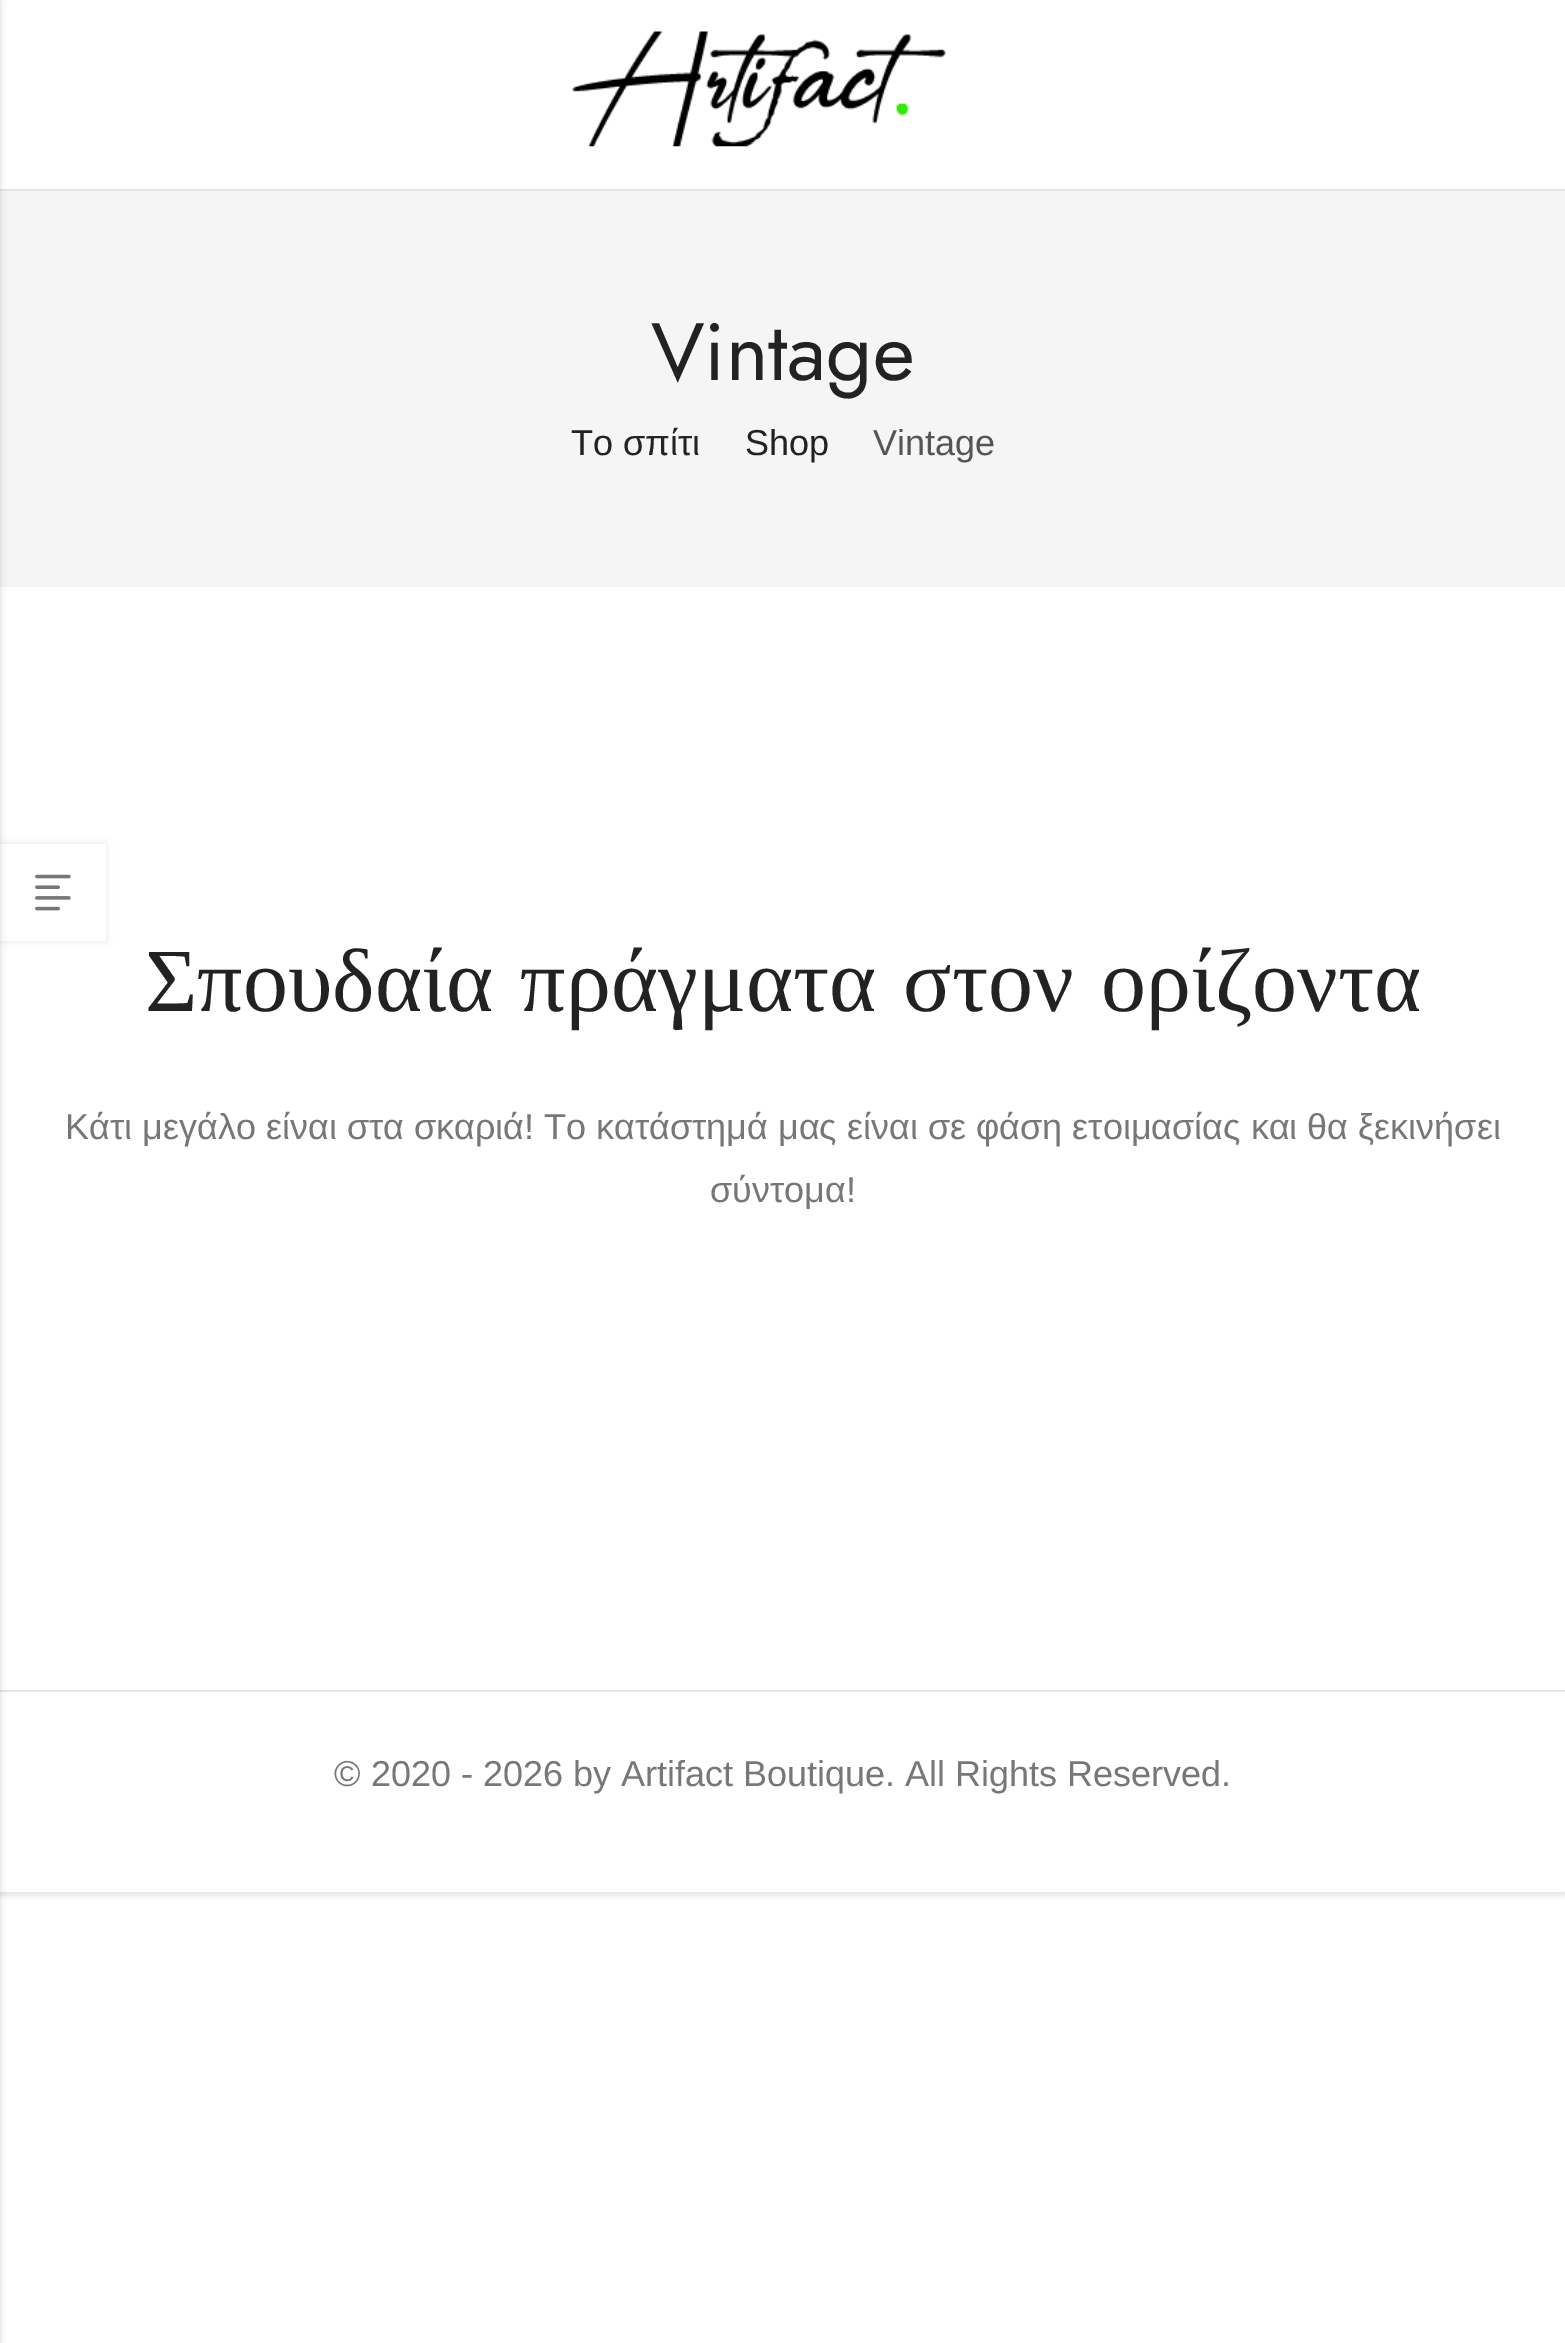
%!PS-Adobe-3.0
%%BoundingBox: 0 0 1565 2343
%%LanguageLevel: 3
%%Pages: 1
%%EndComments
%%BeginProlog
/setalpha { dup .setfillconstantalpha .setstrokeconstantalpha } def
/rrect { 5 dict begin { /r /h /w /y /x } { exch def } forall
  x r add y moveto x w add y 2 copy h add r arct x w add y h add x 1 index r arct
  x y h add x y r arct x y 2 copy exch w add exch r arct closepath end } def
/softshadow { 12 dict begin { /a /b /q /h /w /y /x } { exch def } forall gsave /was 0 def
  9 -2 -9 { dup b mul 4 div /e exch def 1 sub .425 mul 2.718 exch exp 1 add a .99 .min exch div /now exch def
    1 1 now sub 1 was sub div sub setalpha /was now def
    w h .min e 2 mul add 0 gt { x e sub y e sub w e 2 mul add h e 2 mul add
      q e add b .6 mul add w h .min 2 div e add .min 0 .max rrect fill } if } for grestore end } def
/drawimage { 5 dict begin { /h /w /y /x /name } { exch def } forall
  gsave x y translate w h scale
  w h 8 [w 0 0 h 0 0] name (r) file false 3 colorimage grestore end } def
%%EndProlog
%%BeginSetup
<< /PageSize [1565 2343] /PageUsesTransparency true >> setpagedevice
%%EndSetup
%%Page: 1 1
0 .pushpdf14devicefilter
0 2343 translate 1 -1 scale
4 setmiterlimit
1 setgray
0 0 1565 2343 rectfill
gsave
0 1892 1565 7 rectclip
0 setgray
0 0 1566 1892 0 5.5 0.2 softshadow
grestore
0.898 setgray
0 189 1565 2 rectfill
0.961 setgray
0 191 1565 396 rectfill
0.898 setgray
0 1690 1565 2 rectfill
0 setgray
0 844 106 97 0 3.5 0.1 softshadow
1 setgray
0 844 106 97 rectfill
0 setgray
-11 0 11 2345 0 3.5 0.15 softshadow
(images/1.raw) 572 31 374 116 drawimage
(images/2.raw) 35 874 36 37 drawimage
/Jost-Regular [81 0 0 -81 0 0] selectfont
0.133 setgray
651 380 moveto (Vintage) show
/LiberationSans-Regular [36 0 0 -36 0 0] selectfont
571 455 moveto (Το σπίτι) show
745 455 moveto (Shop) show
0.333 setgray
873 455 moveto (Vintage) show
/LiberationSerif-Regular [90 0 0 -90 0 0] selectfont
0.133 setgray
145 1011 moveto 4.5 0 32 (Σπουδαία πράγματα στον ορίζοντα) widthshow
/LiberationSans-Regular [36 0 0 -36 0 0] selectfont
0.467 setgray
65 1139 moveto (Κάτι μεγάλο είναι στα σκαριά! Το κατάστημά μας είναι σε φάση ετοιμασίας και θα ξεκινήσει) show
710 1202 moveto (σύντομα!) show
334 1786 moveto (© 2020 - 2026 by Artifact Boutique. All Rights Reserved.) show
.poppdf14devicefilter showpage
%%EOF
